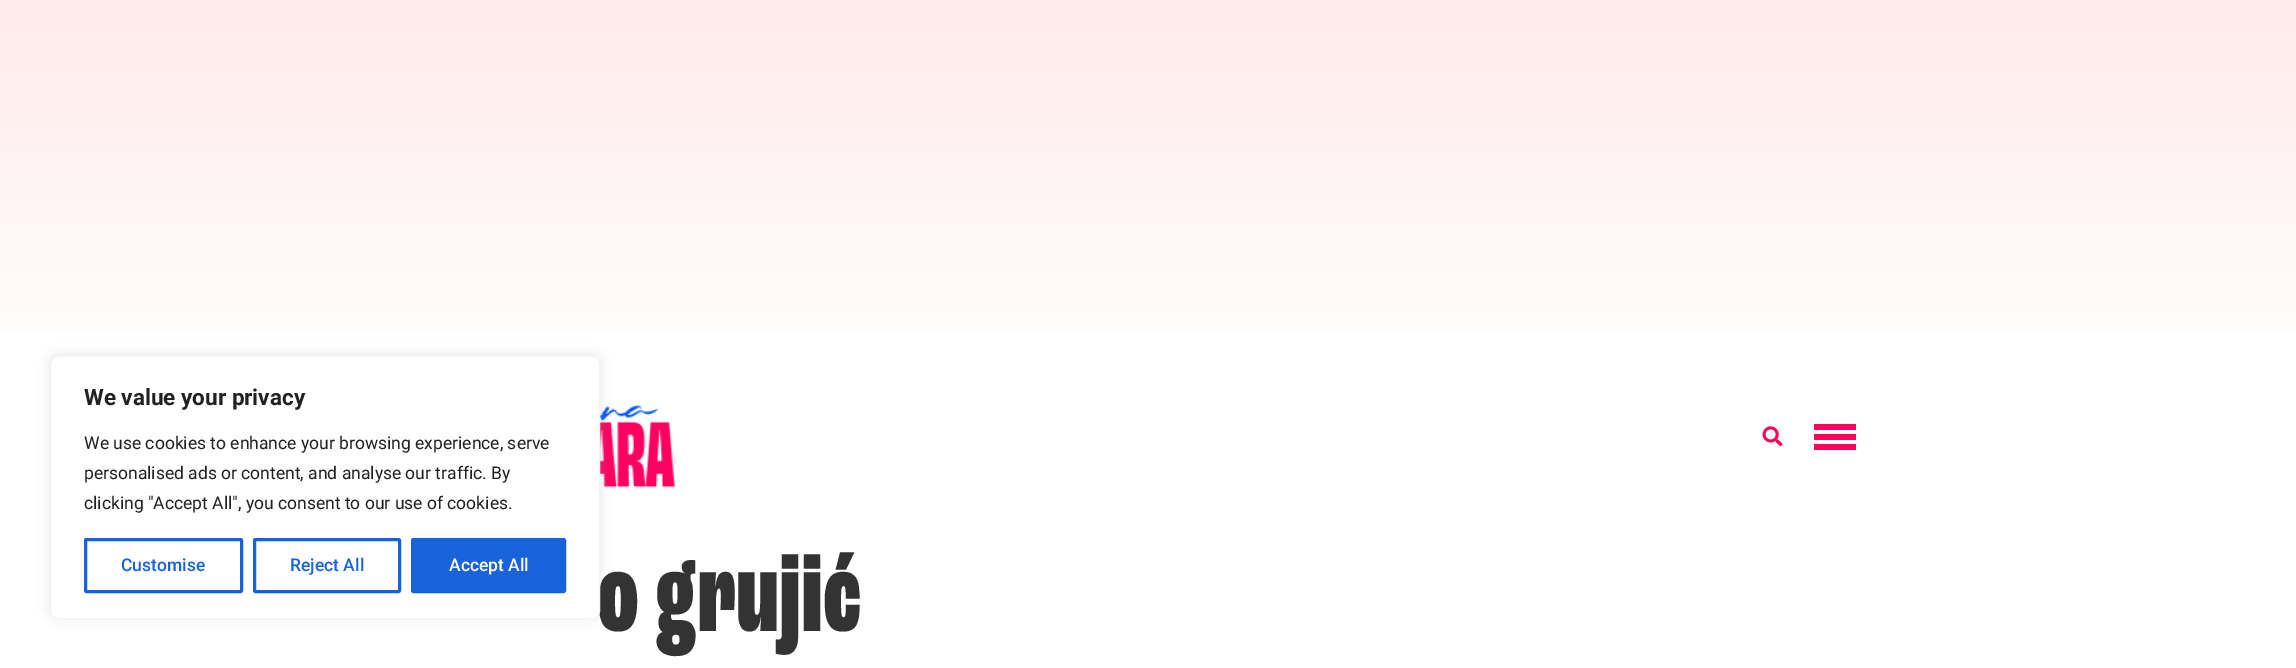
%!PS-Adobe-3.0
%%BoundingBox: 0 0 2296 668
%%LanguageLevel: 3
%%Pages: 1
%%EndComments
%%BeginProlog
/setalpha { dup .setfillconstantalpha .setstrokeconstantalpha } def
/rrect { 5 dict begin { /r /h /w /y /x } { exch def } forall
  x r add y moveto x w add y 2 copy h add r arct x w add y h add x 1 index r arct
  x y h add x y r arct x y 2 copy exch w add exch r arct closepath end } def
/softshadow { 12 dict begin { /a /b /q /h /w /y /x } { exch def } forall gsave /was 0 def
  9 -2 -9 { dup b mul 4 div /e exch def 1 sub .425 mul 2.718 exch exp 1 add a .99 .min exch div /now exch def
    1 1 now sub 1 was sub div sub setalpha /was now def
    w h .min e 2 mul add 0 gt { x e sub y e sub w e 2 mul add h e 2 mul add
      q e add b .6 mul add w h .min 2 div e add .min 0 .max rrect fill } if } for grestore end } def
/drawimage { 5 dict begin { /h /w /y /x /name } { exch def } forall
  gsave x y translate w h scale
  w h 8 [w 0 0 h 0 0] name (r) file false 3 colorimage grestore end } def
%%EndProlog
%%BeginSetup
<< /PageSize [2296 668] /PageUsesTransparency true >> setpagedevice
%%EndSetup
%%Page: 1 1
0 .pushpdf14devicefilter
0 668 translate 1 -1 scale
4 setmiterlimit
1 setgray
0 0 2296 668 rectfill
gsave newpath 0 0 moveto 2296 0 lineto 2296 330 lineto 0 330 lineto closepath clip newpath
<< /ShadingType 2 /ColorSpace /DeviceRGB /Coords [1148 0 1148 375] /Extend [true true] /Function << /FunctionType 2 /Domain [0 1] /C0 [1 0.918 0.918] /C1 [1 1 1] /N 1 >> >> shfill grestore
(images/1.raw) 600 405 76 83 drawimage
(images/2.raw) 1762 426 21 21 drawimage
0.984 0.016 0.361 setrgbcolor
1814 424 42 6 rectfill
1814 434 42 6 rectfill
1814 444 42 6 rectfill
0.675 0.671 0.671 setrgbcolor
50 355 550 263 8 6 0.3 softshadow
/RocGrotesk-ExtraBold [119 0 0 -119 0 0] selectfont
0.2 setgray
597 631 moveto (o grujić) show
1 setgray
50.5 356.5 549 262 7.5 rrect gsave fill grestore
0.957 setgray
stroke
0.094 0.388 0.863 setrgbcolor
412.5 539.5 152 52 1 rrect gsave fill grestore
3 setlinewidth
stroke
/Roboto-Medium [17.5 0 0 -17.5 0 0] selectfont
1 setgray
449 571 moveto (Accept All) show
0.094 0.388 0.863 setrgbcolor
254.5 539.5 145 52 1 rrect stroke
290 571 moveto (Reject All) show
85.5 539.5 156 52 1 rrect stroke
121 571 moveto (Customise) show
/Roboto-Regular [17.5 0 0 -17.5 0 0] selectfont
0.129 setgray
84 509 moveto (clicking "Accept All", you consent to our use of cookies.) show
84 479 moveto (personalised ads or content, and analyse our traffic. By) show
84 449 moveto (We use cookies to enhance your browsing experience, serve) show
/Roboto-Bold [22.5 0 0 -22.5 0 0] selectfont
84 405 moveto (We value your privacy) show
.poppdf14devicefilter showpage
%%EOF
